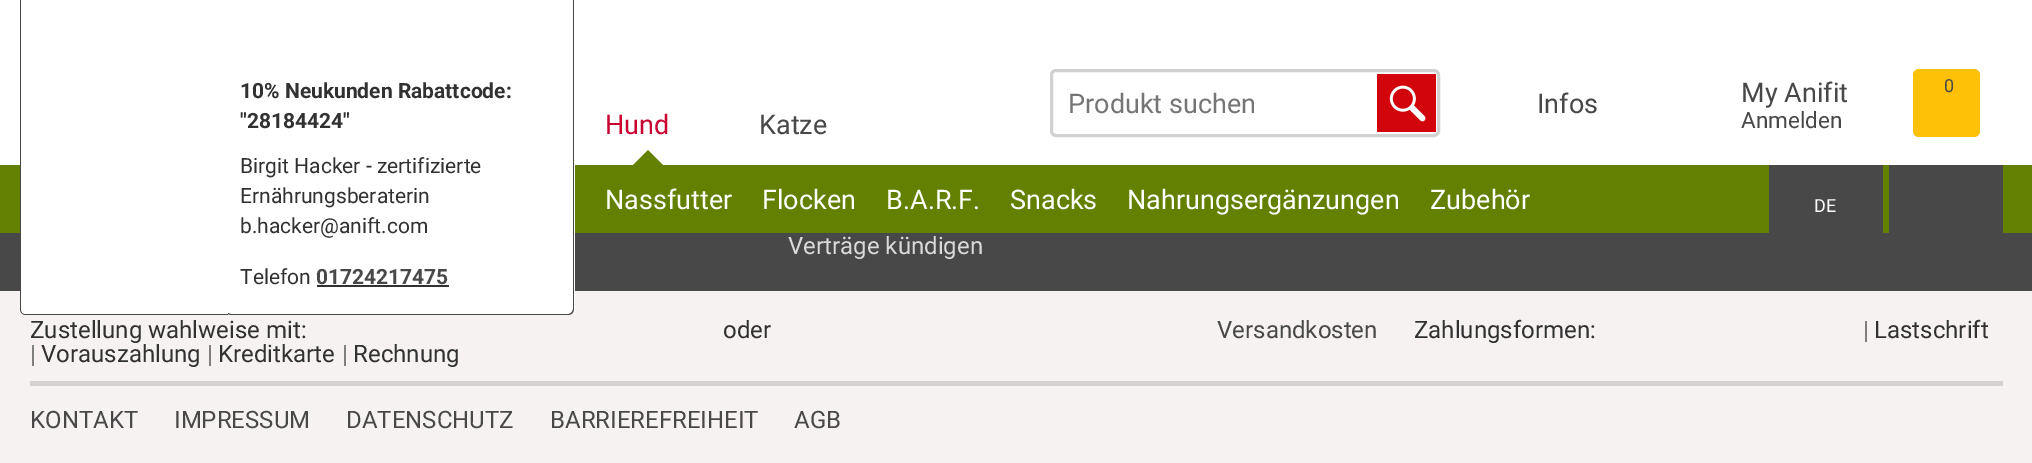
%!PS-Adobe-3.0
%%BoundingBox: 0 0 2032 463
%%LanguageLevel: 3
%%Pages: 1
%%EndComments
%%BeginProlog
/rrect { 5 dict begin { /r /h /w /y /x } { exch def } forall
  x r add y moveto x w add y 2 copy h add r arct x w add y h add x 1 index r arct
  x y h add x y r arct x y 2 copy exch w add exch r arct closepath end } def
/drawimage { 5 dict begin { /h /w /y /x /name } { exch def } forall
  gsave x y translate w h scale
  w h 8 [w 0 0 h 0 0] name (r) file false 3 colorimage grestore end } def
%%EndProlog
%%BeginSetup
<< /PageSize [2032 463] >> setpagedevice
%%EndSetup
%%Page: 1 1
0 463 translate 1 -1 scale
4 setmiterlimit
0.282 setgray
0 0 2032 463 rectfill
1 setgray
0 0 2032 165 rectfill
0.388 0.502 0 setrgbcolor
0 165 2032 68 rectfill
0.965 0.949 0.945 setrgbcolor
0 291 2032 172 rectfill
1 setgray
newpath 225 0 moveto 575 0 lineto 575 309 lineto 575 312.5 572.5 315 569 315 curveto 231 315 lineto 227.5 315 225 312.5 225 309 curveto closepath fill
0.282 setgray
newpath 225 0 moveto 574 0 lineto 574 309 lineto 574 312 572 315 568 315 curveto 231 315 lineto 228 315 225 312 225 309 curveto closepath 225 0 moveto 573 0 lineto 573 309 lineto 573 311 571 314 568 314 curveto 231 314 lineto 228 314 225 311 225 309 curveto closepath eofill
newpath 20 0 moveto 228 0 lineto 228 315 lineto 26 315 lineto 22 315 20 312 20 309 curveto closepath 21 0 moveto 228 0 lineto 228 314 lineto 26 314 lineto 23 314 21 311 21 309 curveto closepath eofill
1 setgray
newpath 21 0 moveto 228 0 lineto 228 314 lineto 26 314 lineto 23 314 21 312 21 309 curveto closepath fill
0.192 setgray
317 285 132 2 rectfill
1 0.757 0.027 setrgbcolor
1913 69 67 68 6 rrect fill
0.388 0.502 0 setrgbcolor
newpath 666 168 moveto 630 168 lineto 648 150 lineto closepath fill
0.82 setgray
3 setlinewidth
1051.5 70.5 387 65 4.5 rrect stroke
0.827 0.02 0.047 setrgbcolor
1377 74 59 58 rectfill
(images/1.raw) 1389 85 37 37 drawimage
0.282 setgray
1769 165 114 68 rectfill
1889 165 114 68 rectfill
0.827 0.824 0.816 setrgbcolor
30 381 1973 5 rectfill
0.502 setgray
1865 321 2 21 rectfill
32 345 2 21 rectfill
209 345 2 21 rectfill
344 345 2 21 rectfill
/Roboto-Bold [21 0 0 -21 0 0] selectfont
0.192 setgray
240 98 moveto (10% Neukunden Rabattcode:) show
240 128 moveto ("28184424") show
/Roboto-Regular [21 0 0 -21 0 0] selectfont
240 173 moveto (Birgit Hacker - zertifizierte) show
240 203 moveto (Ernährungsberaterin) show
240 233 moveto (b.hacker@anift.com) show
240 284 moveto (Telefon) show
/Roboto-Bold [21 0 0 -21 0 0] selectfont
0.282 setgray
316 284 moveto (01724217475) show
/Roboto-Regular [27 0 0 -27 0 0] selectfont
1537 113 moveto (Infos) show
1741 102 moveto (My Anifit) show
/Roboto-Regular [22.5 0 0 -22.5 0 0] selectfont
1741 128 moveto (Anmelden) show
/Roboto-Regular [18 0 0 -18 0 0] selectfont
1944 92 moveto (0) show
/Roboto-Regular [27 0 0 -27 0 0] selectfont
0.788 0.008 0.188 setrgbcolor
605 134 moveto (Hund) show
1 setgray
605 209 moveto (Nassfutter) show
762 209 moveto (Flocken) show
886 209 moveto (B.A.R.F.) show
1010 209 moveto (Snacks) show
1127 209 moveto (Nahrungsergänzungen) show
1430 209 moveto (Zubehör) show
0.282 setgray
759 134 moveto (Katze) show
0.459 setgray
1068 113 moveto (Produkt suchen) show
/Roboto-Regular [18 0 0 -18 0 0] selectfont
1 setgray
1814 212 moveto (DE) show
/Roboto-Regular [24 0 0 -24 0 0] selectfont
0.855 setgray
788 254 moveto (Verträge kündigen) show
0.192 setgray
1414 338 moveto (Zahlungsformen:) show
1874 338 moveto (Lastschrift) show
41 362 moveto (Vorauszahlung) show
218 362 moveto (Kreditkarte) show
353 362 moveto (Rechnung) show
30 338 moveto (Zustellung wahlweise mit:) show
723 338 moveto (oder) show
0.282 setgray
1217 338 moveto (Versandkosten) show
30 428 moveto (KONTAKT) show
174 428 moveto (IMPRESSUM) show
346 428 moveto (DATENSCHUTZ) show
550 428 moveto (BARRIEREFREIHEIT) show
794 428 moveto (AGB) show
showpage
%%EOF
